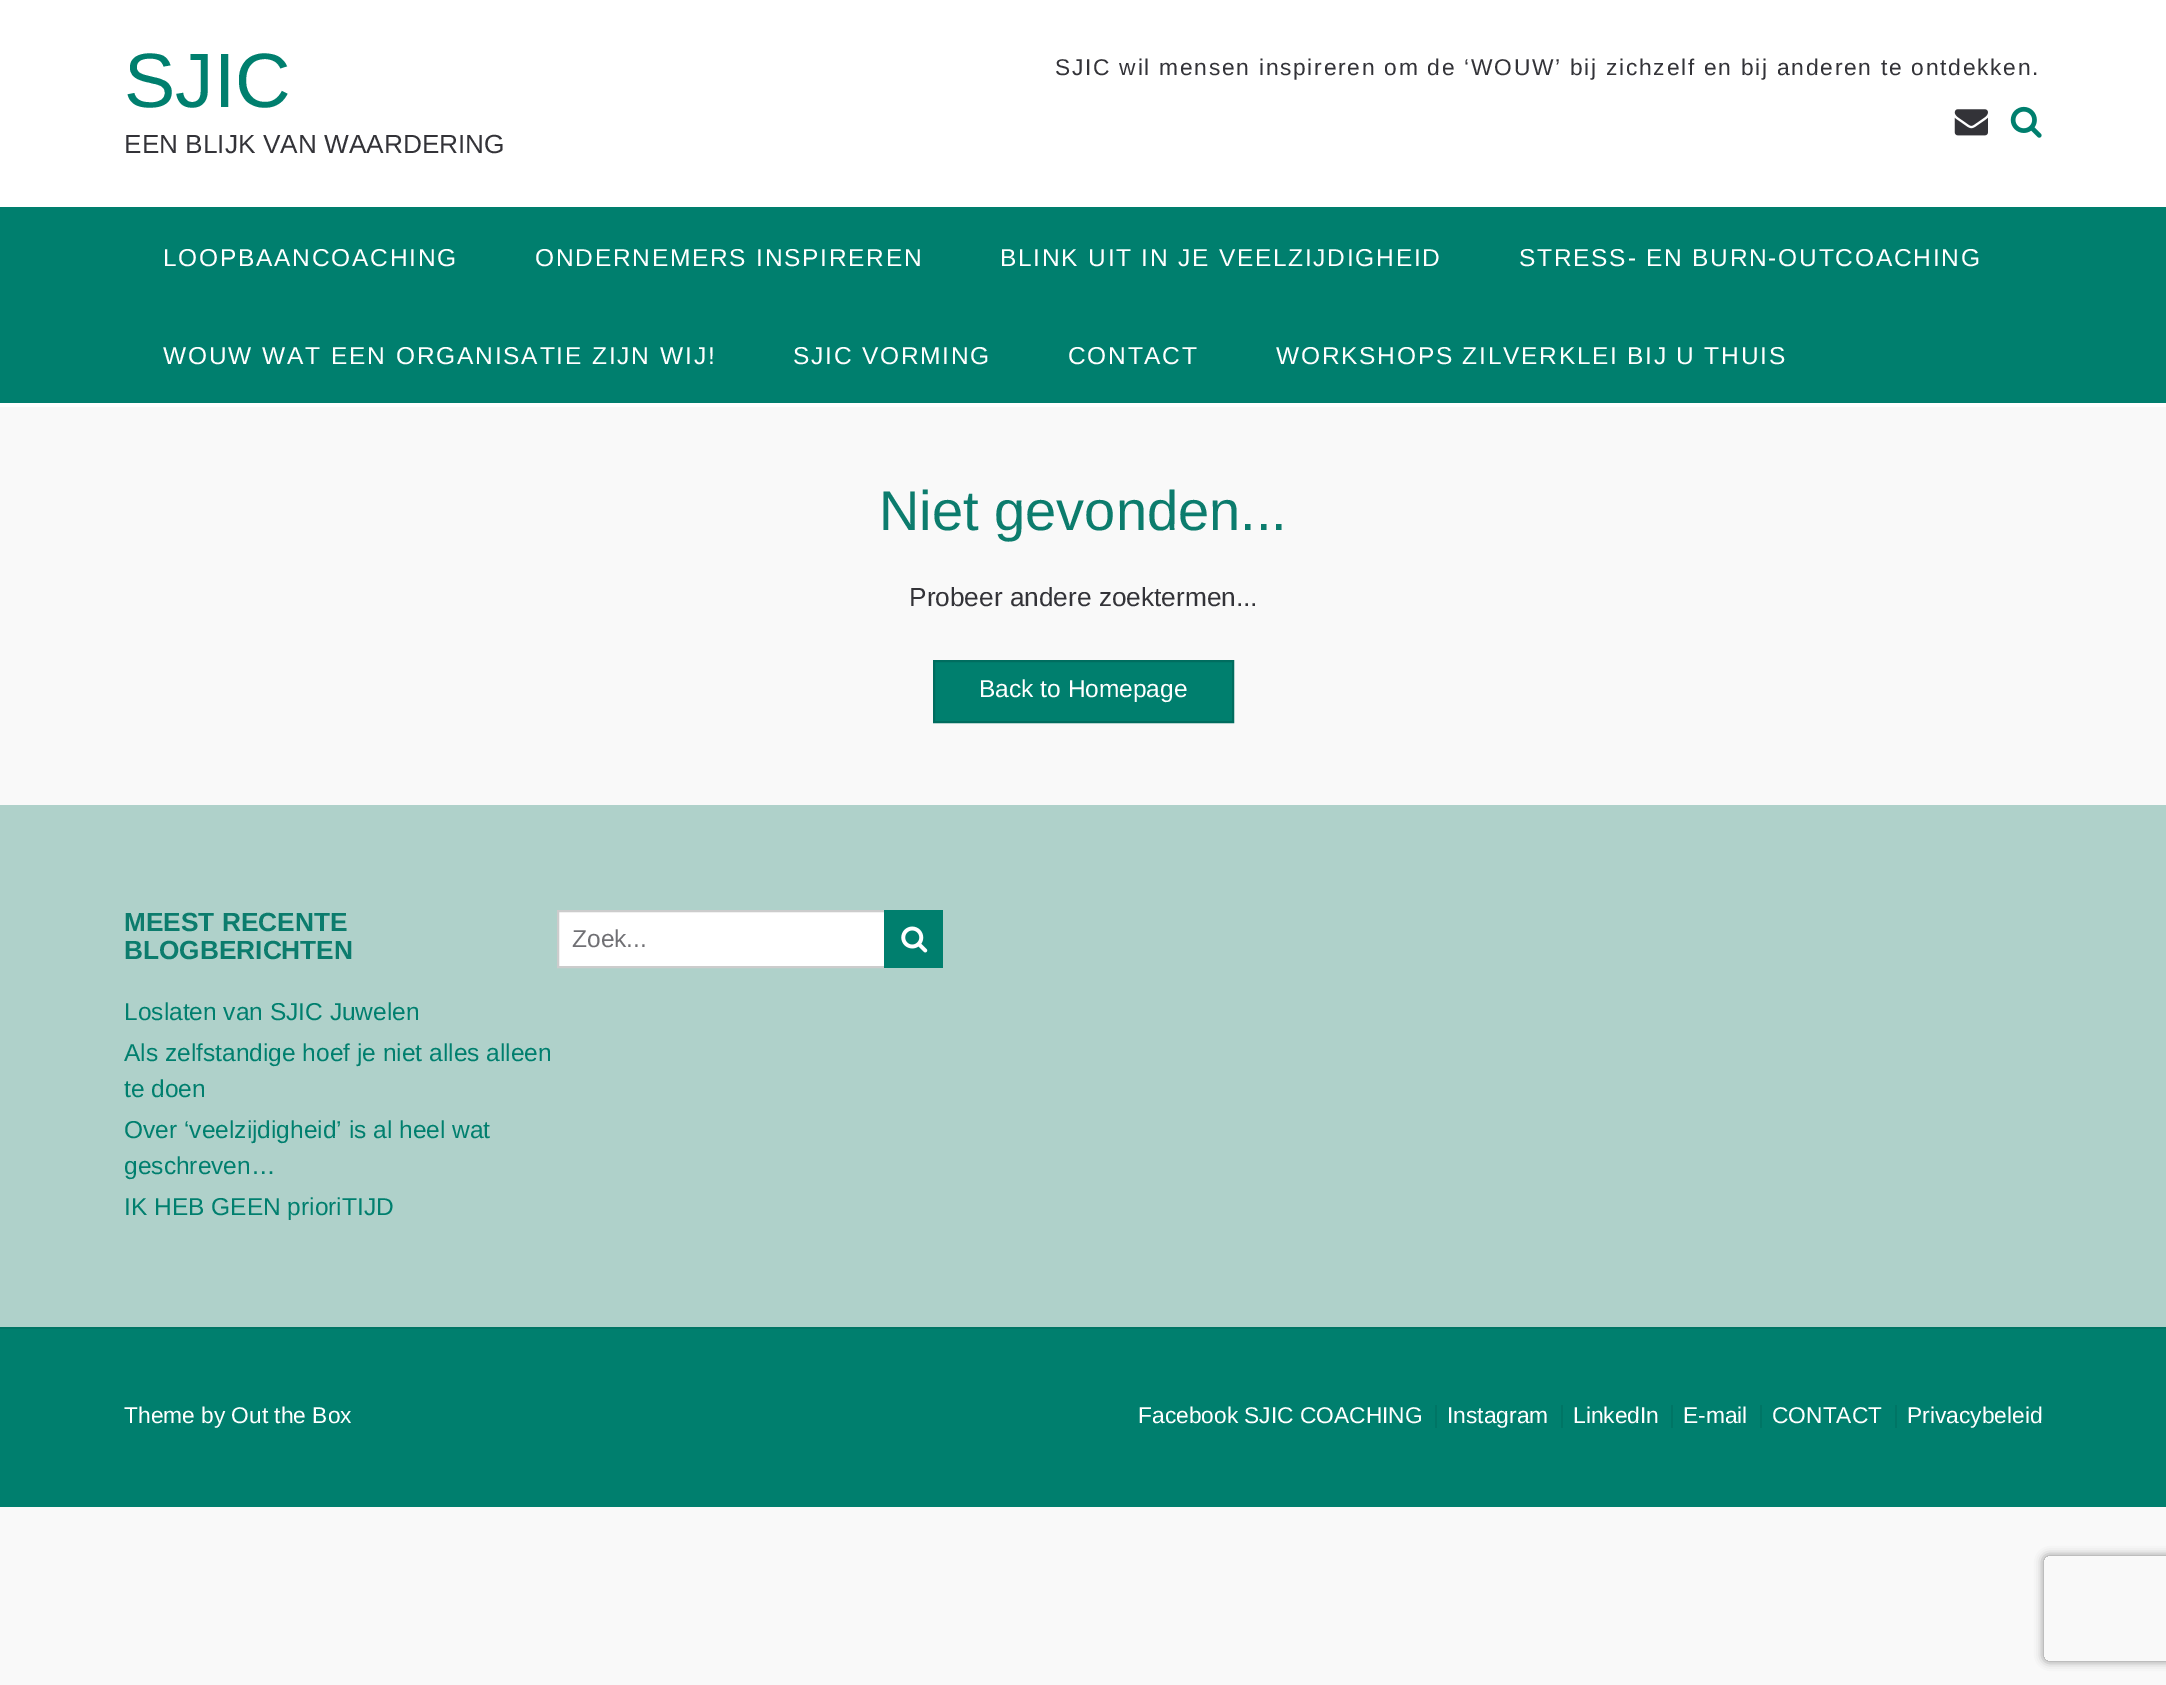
%!PS-Adobe-3.0
%%BoundingBox: 0 0 2166 1685
%%LanguageLevel: 3
%%Pages: 1
%%EndComments
%%BeginProlog
/setalpha { dup .setfillconstantalpha .setstrokeconstantalpha } def
/rrect { 5 dict begin { /r /h /w /y /x } { exch def } forall
  x r add y moveto x w add y 2 copy h add r arct x w add y h add x 1 index r arct
  x y h add x y r arct x y 2 copy exch w add exch r arct closepath end } def
/softshadow { 12 dict begin { /a /b /q /h /w /y /x } { exch def } forall gsave /was 0 def
  9 -2 -9 { dup b mul 4 div /e exch def 1 sub .425 mul 2.718 exch exp 1 add a .99 .min exch div /now exch def
    1 1 now sub 1 was sub div sub setalpha /was now def
    w h .min e 2 mul add 0 gt { x e sub y e sub w e 2 mul add h e 2 mul add
      q e add b .6 mul add w h .min 2 div e add .min 0 .max rrect fill } if } for grestore end } def
/drawimage { 5 dict begin { /h /w /y /x /name } { exch def } forall
  gsave x y translate w h scale
  w h 8 [w 0 0 h 0 0] name (r) file false 3 colorimage grestore end } def
%%EndProlog
%%BeginSetup
<< /PageSize [2166 1685] /PageUsesTransparency true >> setpagedevice
%%EndSetup
%%Page: 1 1
0 .pushpdf14devicefilter
0 1685 translate 1 -1 scale
4 setmiterlimit
0.976 setgray
0 0 2166 1685 rectfill
1 setgray
0 0 2166 207 rectfill
(images/1.raw) 1954 109 34 27 drawimage
(images/2.raw) 2010 106 32 32 drawimage
0 0.498 0.431 setrgbcolor
0 207 2166 196 rectfill
1 setgray
0 403 2166 4 rectfill
0 0.498 0.431 setrgbcolor
newpath 934 661 moveto 1233 661 lineto 1233 722 lineto 934 722 lineto closepath gsave fill grestore
0 0.427 0.373 setrgbcolor
2 setlinewidth
stroke
0.686 0.82 0.792 setrgbcolor
0 805 2166 522 rectfill
1 setgray
559 912 325 54 rectfill
0.8 setgray
558 911 328 56 rectstroke
0 0.498 0.431 setrgbcolor
884 910 59 58 rectfill
(images/3.raw) 901 926 27 27 drawimage
0 1329 2166 178 rectfill
0 0.459 0.396 setrgbcolor
0 1327 2166 2 rectfill
newpath 1127 1405 moveto 1435 1405 lineto 1435 1428 lineto 1437 1428 lineto 1437 1405 lineto closepath fill
newpath 1437 1405 moveto 1561 1405 lineto 1561 1428 lineto 1563 1428 lineto 1563 1405 lineto closepath fill
newpath 1563 1405 moveto 1671 1405 lineto 1671 1428 lineto 1673 1428 lineto 1673 1405 lineto closepath fill
newpath 1673 1405 moveto 1760 1405 lineto 1760 1428 lineto 1762 1428 lineto 1762 1405 lineto closepath fill
newpath 1762 1405 moveto 1895 1405 lineto 1895 1428 lineto 1897 1428 lineto 1897 1405 lineto closepath fill
gsave
newpath 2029 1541 moveto 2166 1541 lineto 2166 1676 lineto 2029 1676 lineto closepath 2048 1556 moveto 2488 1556 lineto 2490 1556 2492 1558 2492 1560 curveto 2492 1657 lineto 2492 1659 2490 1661 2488 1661 curveto 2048 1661 lineto 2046 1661 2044 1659 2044 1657 curveto 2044 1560 lineto 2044 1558 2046 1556 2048 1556 curveto closepath eoclip newpath
0.502 setgray
2044 1556 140 105 4 4.5 1 softshadow
grestore
/LiberationSans-Regular [77 0 0 -77 0 0] selectfont
0 0.498 0.431 setrgbcolor
124 107 moveto (SJIC) show
/LiberationSans-Regular [26.25 0 0 -26.25 0 0] selectfont
0.2 0.2 0.22 setrgbcolor
124 153 moveto (EEN BLIJK VAN WAARDERING) show
/LiberationSans-Regular [22.75 0 0 -22.75 0 0] selectfont
1055 75 moveto 1.75 0 (SJIC wil mensen inspireren om de ‘WOUW’ bij zichzelf en bij anderen te ontdekken.) ashow
/LiberationSans-Regular [24.5 0 0 -24.5 0 0] selectfont
1 setgray
163 266 moveto 1.75 0 (LOOPBAANCOACHING) ashow
535 266 moveto 1.75 0 (ONDERNEMERS INSPIREREN) ashow
1000 266 moveto 1.75 0 (BLINK UIT IN JE VEELZIJDIGHEID) ashow
1519 266 moveto 1.75 0 (STRESS- EN BURN-OUTCOACHING) ashow
163 364 moveto 0.75 0 32 1.75 0 (WOUW WAT EEN ORGANISATIE ZIJN WIJ!) awidthshow
793 364 moveto 1.75 0 (SJIC VORMING) ashow
1068 364 moveto 1.75 0 (CONTACT) ashow
1276 364 moveto 1.75 0 (WORKSHOPS ZILVERKLEI BIJ U THUIS) ashow
/LiberationSans-Regular [56 0 0 -56 0 0] selectfont
0.047 0.486 0.427 setrgbcolor
879 530 moveto (Niet gevonden...) show
/LiberationSans-Regular [26.25 0 0 -26.25 0 0] selectfont
0.2 0.2 0.22 setrgbcolor
909 606 moveto (Probeer andere zoektermen...) show
/LiberationSans-Regular [24.5 0 0 -24.5 0 0] selectfont
1 setgray
979 697 moveto (Back to Homepage) show
/LiberationSans-Bold [26.25 0 0 -26.25 0 0] selectfont
0.047 0.486 0.427 setrgbcolor
124 931 moveto (MEEST RECENTE) show
124 959 moveto (BLOGBERICHTEN) show
/LiberationSans-Regular [24.5 0 0 -24.5 0 0] selectfont
0 0.498 0.431 setrgbcolor
124 1020 moveto (Loslaten van SJIC Juwelen) show
124 1061 moveto (Als zelfstandige hoef je niet alles alleen) show
124 1097 moveto (te doen) show
124 1138 moveto (Over ‘veelzijdigheid’ is al heel wat) show
124 1174 moveto (geschreven…) show
124 1215 moveto (IK HEB GEEN prioriTIJD) show
0.439 0.439 0.455 setrgbcolor
572 947 moveto (Zoek...) show
/LiberationSans-Regular [22.75 0 0 -22.75 0 0] selectfont
1 setgray
124 1423 moveto (Theme by Out the Box) show
1138 1423 moveto (Facebook SJIC COACHING) show
1447 1423 moveto (Instagram) show
1573 1423 moveto (LinkedIn) show
1683 1423 moveto (E-mail) show
1772 1423 moveto (CONTACT) show
1907 1423 moveto (Privacybeleid) show
.poppdf14devicefilter showpage
%%EOF
